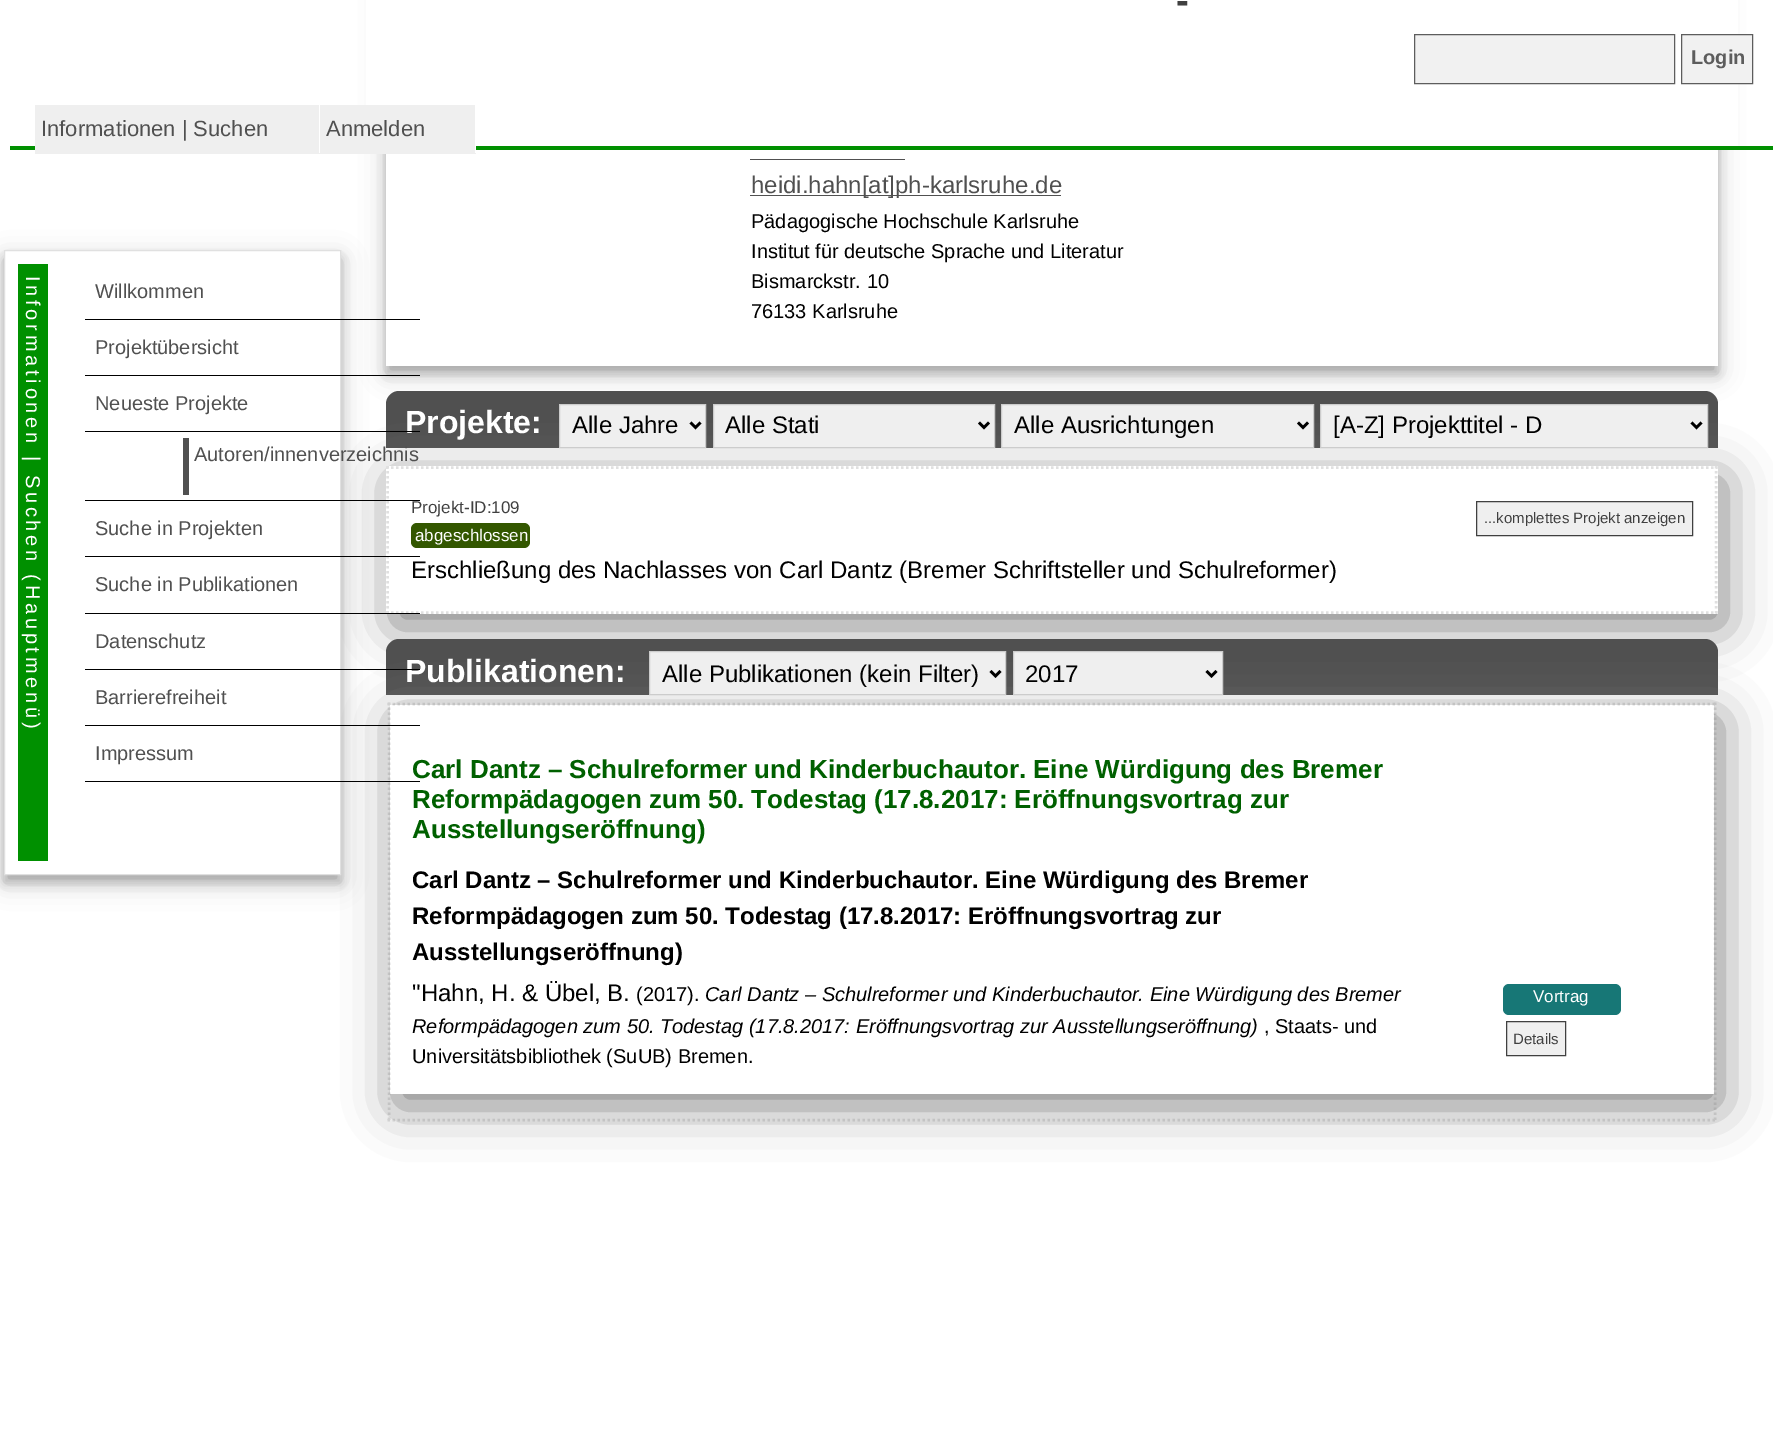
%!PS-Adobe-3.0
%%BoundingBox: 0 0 1773 1450
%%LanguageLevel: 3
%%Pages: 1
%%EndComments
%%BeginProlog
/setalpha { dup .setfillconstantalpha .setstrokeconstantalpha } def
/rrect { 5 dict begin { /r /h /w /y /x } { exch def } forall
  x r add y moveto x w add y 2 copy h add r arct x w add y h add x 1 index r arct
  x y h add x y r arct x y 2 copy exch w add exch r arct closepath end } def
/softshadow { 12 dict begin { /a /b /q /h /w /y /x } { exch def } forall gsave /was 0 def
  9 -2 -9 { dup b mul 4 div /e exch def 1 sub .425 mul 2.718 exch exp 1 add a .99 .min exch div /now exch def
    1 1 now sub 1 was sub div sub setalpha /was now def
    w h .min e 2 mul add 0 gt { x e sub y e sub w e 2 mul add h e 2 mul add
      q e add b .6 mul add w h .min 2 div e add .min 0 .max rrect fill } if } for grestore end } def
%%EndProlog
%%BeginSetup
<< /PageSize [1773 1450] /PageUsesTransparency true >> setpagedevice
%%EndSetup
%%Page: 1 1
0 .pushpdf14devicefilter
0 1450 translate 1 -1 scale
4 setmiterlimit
1 setgray
0 0 1773 1450 rectfill
0 setgray
386 -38 1332 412 0 12.5 0.19 softshadow
386 -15 1332 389 0 5 0.2 softshadow
1 setgray
366 0 1372 146 rectfill
0 0.565 0 setrgbcolor
10 146 1763 4 rectfill
0.945 setgray
newpath 1414.5 34.5 moveto 1674.5 34.5 lineto 1674.5 83.5 lineto 1414.5 83.5 lineto closepath gsave fill grestore
0.365 setgray
stroke
0.945 setgray
newpath 1681.5 34.5 moveto 1752.5 34.5 lineto 1752.5 83.5 lineto 1681.5 83.5 lineto closepath gsave fill grestore
0.365 setgray
stroke
1 setgray
386 150 1332 216 rectfill
0.937 setgray
35 105 440 48 rectfill
1 setgray
319 105 1 49 rectfill
0.937 setgray
35 153 285 1 rectfill
1 setgray
475 146 1 8 rectfill
0.937 setgray
320 153 156 1 rectfill
0 setgray
4 258 337 625 0 12.5 0.19 softshadow
4 258 337 625 0 5 0.2 softshadow
0.314 setgray
newpath 399 391 moveto 1705 391 lineto 1712 391 1718 397 1718 404 curveto 1718 448 lineto 386 448 lineto 386 404 lineto 386 397 392 391 399 391 curveto closepath fill
gsave
newpath 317 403 moveto 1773 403 lineto 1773 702 lineto 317 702 lineto closepath 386 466 moveto 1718 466 lineto 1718 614 lineto 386 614 lineto closepath eoclip newpath
0.502 setgray
393 479 1331 147 0 25 1 softshadow
grestore
newpath 399 639 moveto 1705 639 lineto 1712 639 1718 645 1718 652 curveto 1718 695 lineto 386 695 lineto 386 652 lineto 386 645 392 639 399 639 curveto closepath fill
0.878 setgray
2.5 setlinewidth
[2.5 2.5] 0 setdash
newpath 387.5 704 moveto 1716 704 lineto stroke
newpath 1715 702.5 moveto 1715 1121 lineto stroke
newpath 387.5 1120 moveto 1716 1120 lineto stroke
newpath 389 702.5 moveto 389 1121 lineto stroke
gsave
newpath 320 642 moveto 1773 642 lineto 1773 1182 lineto 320 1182 lineto closepath 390 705 moveto 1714 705 lineto 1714 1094 lineto 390 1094 lineto closepath eoclip newpath
0.502 setgray
396 718 1324 388 0 25 1 softshadow
grestore
1 setgray
newpath 4.5 250.5 moveto 340.5 250.5 lineto 340.5 874.5 lineto 4.5 874.5 lineto closepath gsave fill grestore
0.878 setgray
1 setlinewidth
[] 0 setdash
stroke
0 0.565 0 setrgbcolor
18 264 30 597 rectfill
0 setgray
85 319 335 1 rectfill
85 375 335 1 rectfill
0.314 setgray
183 438 6 57 rectfill
0.878 setgray
2.5 setlinewidth
[2.5 2.5] 0 setdash
newpath 386 467.5 moveto 1717.5 467.5 lineto stroke
newpath 1716 466 moveto 1716 614 lineto stroke
newpath 386 612.5 moveto 1717.5 612.5 lineto stroke
newpath 387.5 466 moveto 387.5 614 lineto stroke
0 setgray
85 556 335 1 rectfill
85 613 335 1 rectfill
85 725 335 1 rectfill
0.314 setgray
750 159 155 1 rectfill
750 195 311 1 rectfill
0.937 setgray
newpath 559.5 404.5 moveto 705.5 404.5 lineto 705.5 447.5 lineto 559.5 447.5 lineto closepath gsave fill grestore
0.8 setgray
1 setlinewidth
[] 0 setdash
stroke
0 setgray
2.5 setlinewidth
newpath 690.5 422.5 moveto 695.5 427.5 lineto 700.5 422.5 lineto stroke
0.937 setgray
newpath 713.5 404.5 moveto 994.5 404.5 lineto 994.5 447.5 lineto 713.5 447.5 lineto closepath gsave fill grestore
0.8 setgray
1 setlinewidth
stroke
0 setgray
2.5 setlinewidth
newpath 979 422.5 moveto 984 427.5 lineto 989 422.5 lineto stroke
0.937 setgray
newpath 1001.5 404.5 moveto 1313.5 404.5 lineto 1313.5 447.5 lineto 1001.5 447.5 lineto closepath gsave fill grestore
0.8 setgray
1 setlinewidth
stroke
0 setgray
2.5 setlinewidth
newpath 1298 422.5 moveto 1303 427.5 lineto 1308 422.5 lineto stroke
0.937 setgray
newpath 1320.5 404.5 moveto 1707.5 404.5 lineto 1707.5 447.5 lineto 1320.5 447.5 lineto closepath gsave fill grestore
0.8 setgray
1 setlinewidth
stroke
0 setgray
2.5 setlinewidth
newpath 1691.5 422.5 moveto 1696.5 427.5 lineto 1701.5 422.5 lineto stroke
0.2 0.341 0 setrgbcolor
411 523 119 25 6 rrect fill
0.937 setgray
newpath 1476.5 501.5 moveto 1692.5 501.5 lineto 1692.5 535.5 lineto 1476.5 535.5 lineto closepath gsave fill grestore
0.251 setgray
1 setlinewidth
stroke
0.937 setgray
newpath 649.5 651.5 moveto 1005.5 651.5 lineto 1005.5 694.5 lineto 649.5 694.5 lineto closepath gsave fill grestore
0.8 setgray
stroke
0 setgray
2.5 setlinewidth
newpath 990.5 671 moveto 995.5 676 lineto 1000.5 671 lineto stroke
0.937 setgray
newpath 1013.5 651.5 moveto 1222.5 651.5 lineto 1222.5 694.5 lineto 1013.5 694.5 lineto closepath gsave fill grestore
0.8 setgray
1 setlinewidth
stroke
0 setgray
2.5 setlinewidth
newpath 1206.5 671 moveto 1211.5 676 lineto 1216.5 671 lineto stroke
0.09 0.467 0.463 setrgbcolor
1503 984 118 31 6 rrect fill
0.937 setgray
newpath 1506.5 1021.5 moveto 1565.5 1021.5 lineto 1565.5 1055.5 lineto 1506.5 1055.5 lineto closepath gsave fill grestore
0.251 setgray
1 setlinewidth
stroke
/LiberationSans-Bold [38 0 0 -38 0 0] selectfont
1176 13 moveto 3.75 0 (-) ashow
/LiberationSans-Bold [20 0 0 -20 0 0] selectfont
0.365 setgray
1691 64 moveto (Login) show
/LiberationSans-Regular [22 0 0 -22 0 0] selectfont
0.314 setgray
41 136 moveto (Informationen | Suchen) show
326 136 moveto (Anmelden) show
/LiberationSans-Regular [20 0 0 -20 0 0] selectfont
1 setgray
gsave 26 276 translate 90 rotate 0 0 moveto 3.75 0 (Informationen | Suchen \(Hauptmenü\)) ashow grestore
0.314 setgray
95 298 moveto (Willkommen) show
95 354 moveto (Projektübersicht) show
95 410 moveto (Neueste Projekte) show
194 461 moveto (Autoren/innenverzeichnis) show
95 535 moveto (Suche in Projekten) show
95 591 moveto (Suche in Publikationen) show
95 648 moveto (Datenschutz) show
95 704 moveto (Barrierefreiheit) show
95 760 moveto (Impressum) show
/LiberationSans-Regular [24 0 0 -24 0 0] selectfont
751 193 moveto (heidi.hahn[at]ph-karlsruhe.de) show
/LiberationSans-Regular [20 0 0 -20 0 0] selectfont
0 setgray
751 228 moveto (Pädagogische Hochschule Karlsruhe) show
751 258 moveto (Institut für deutsche Sprache und Literatur) show
751 288 moveto (Bismarckstr. 10) show
751 318 moveto (76133 Karlsruhe) show
/LiberationSans-Bold [32 0 0 -32 0 0] selectfont
1 setgray
405 433 moveto (Projekte:) show
0 setgray
85 431 335 1 rectfill
/LiberationSans-Regular [24 0 0 -24 0 0] selectfont
572 433 moveto (Alle Jahre) show
725 433 moveto (Alle Stati) show
1014 433 moveto (Alle Ausrichtungen) show
1333 433 moveto ([A-Z] Projekttitel - D) show
/LiberationSans-Regular [17 0 0 -17 0 0] selectfont
0.251 setgray
411 513 moveto (Projekt-ID:109) show
0 setgray
85 500 335 1 rectfill
1 setgray
415 541 moveto (abgeschlossen) show
/LiberationSans-Regular [15 0 0 -15 0 0] selectfont
0.251 setgray
1484 523 moveto (...komplettes Projekt anzeigen) show
/LiberationSans-Regular [24 0 0 -24 0 0] selectfont
0 setgray
411 578 moveto (Erschließung des Nachlasses von Carl Dantz \(Bremer Schriftsteller und Schulreformer\)) show
/LiberationSans-Bold [32 0 0 -32 0 0] selectfont
1 setgray
405 682 moveto (Publikationen:) show
0 setgray
85 669 335 1 rectfill
/LiberationSans-Regular [24 0 0 -24 0 0] selectfont
662 682 moveto (Alle Publikationen \(kein Filter\)) show
1025 682 moveto (2017) show
/LiberationSans-Bold [26 0 0 -26 0 0] selectfont
0 0.376 0 setrgbcolor
412 778 moveto (Carl Dantz – Schulreformer und Kinderbuchautor. Eine Würdigung des Bremer) show
0 setgray
85 781 335 1 rectfill
0 0.376 0 setrgbcolor
412 808 moveto (Reformpädagogen zum 50. Todestag \(17.8.2017: Eröffnungsvortrag zur) show
412 838 moveto (Ausstellungseröffnung\)) show
/LiberationSans-Bold [24 0 0 -24 0 0] selectfont
0 setgray
412 888 moveto (Carl Dantz – Schulreformer und Kinderbuchautor. Eine Würdigung des Bremer) show
412 924 moveto (Reformpädagogen zum 50. Todestag \(17.8.2017: Eröffnungsvortrag zur) show
412 960 moveto (Ausstellungseröffnung\)) show
/LiberationSans-Regular [24 0 0 -24 0 0] selectfont
412 1001 moveto ("Hahn, H. & Übel, B.) show
/LiberationSans-Regular [20 0 0 -20 0 0] selectfont
636 1001 moveto (\(2017\).) show
/LiberationSans-Italic [20 0 0 -20 0 0] selectfont
705 1001 moveto (Carl Dantz – Schulreformer und Kinderbuchautor. Eine Würdigung des Bremer) show
412 1033 moveto (Reformpädagogen zum 50. Todestag \(17.8.2017: Eröffnungsvortrag zur Ausstellungseröffnung\)) show
/LiberationSans-Regular [20 0 0 -20 0 0] selectfont
1264 1033 moveto (, Staats- und) show
412 1063 moveto (Universitätsbibliothek \(SuUB\) Bremen.) show
/LiberationSans-Regular [17 0 0 -17 0 0] selectfont
1 setgray
1533 1002 moveto (Vortrag) show
/LiberationSans-Regular [15 0 0 -15 0 0] selectfont
0.251 setgray
1513 1044 moveto (Details) show
.poppdf14devicefilter showpage
%%EOF
